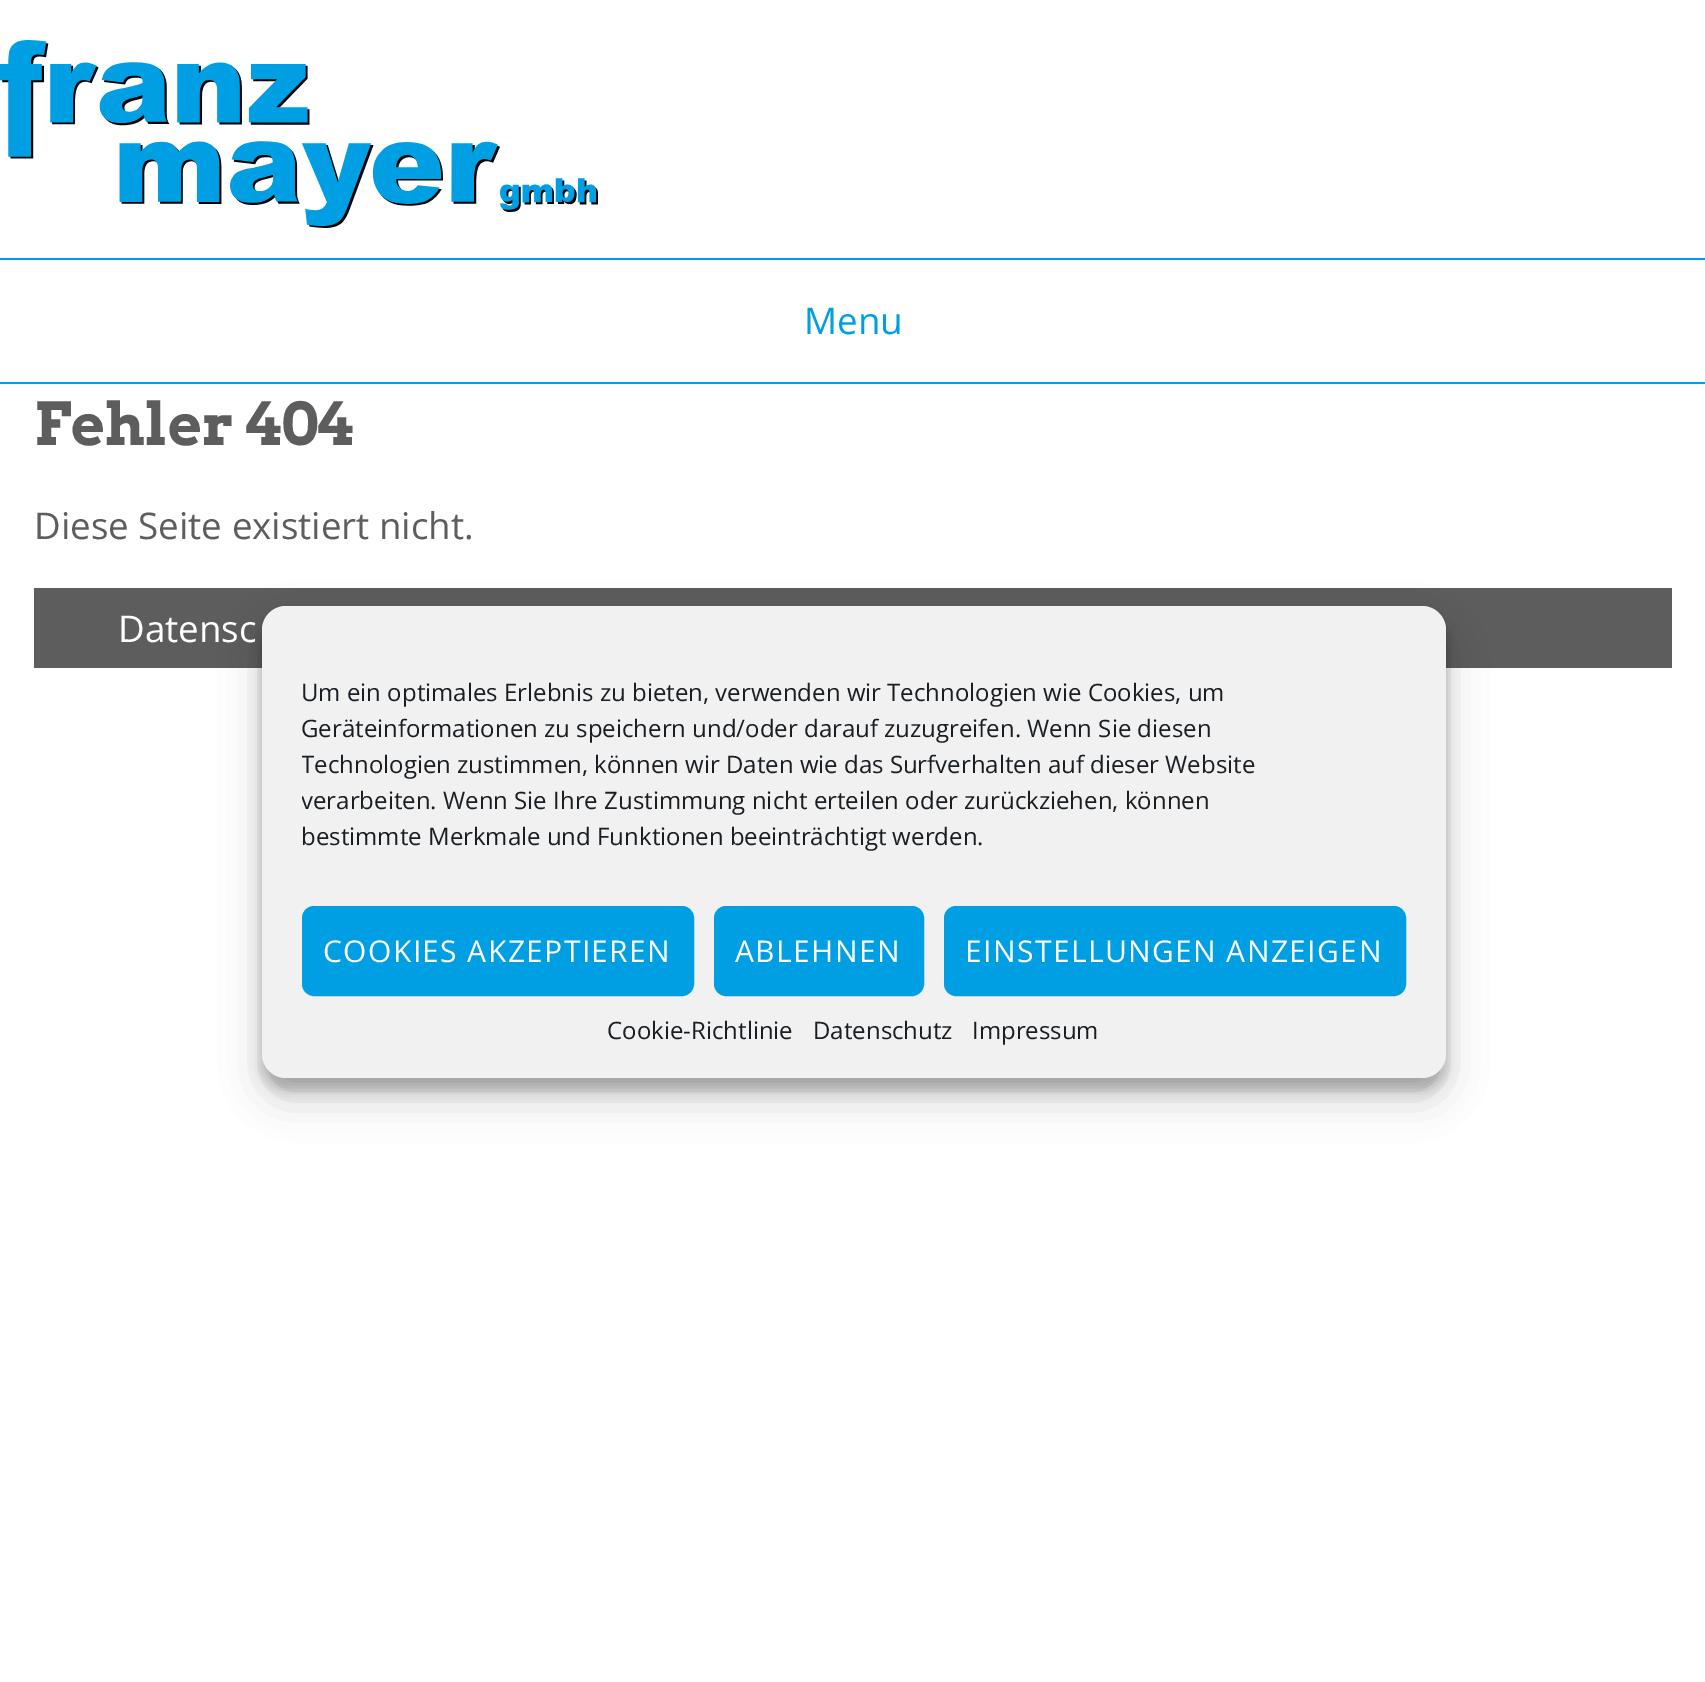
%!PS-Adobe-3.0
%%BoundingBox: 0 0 1705 1682
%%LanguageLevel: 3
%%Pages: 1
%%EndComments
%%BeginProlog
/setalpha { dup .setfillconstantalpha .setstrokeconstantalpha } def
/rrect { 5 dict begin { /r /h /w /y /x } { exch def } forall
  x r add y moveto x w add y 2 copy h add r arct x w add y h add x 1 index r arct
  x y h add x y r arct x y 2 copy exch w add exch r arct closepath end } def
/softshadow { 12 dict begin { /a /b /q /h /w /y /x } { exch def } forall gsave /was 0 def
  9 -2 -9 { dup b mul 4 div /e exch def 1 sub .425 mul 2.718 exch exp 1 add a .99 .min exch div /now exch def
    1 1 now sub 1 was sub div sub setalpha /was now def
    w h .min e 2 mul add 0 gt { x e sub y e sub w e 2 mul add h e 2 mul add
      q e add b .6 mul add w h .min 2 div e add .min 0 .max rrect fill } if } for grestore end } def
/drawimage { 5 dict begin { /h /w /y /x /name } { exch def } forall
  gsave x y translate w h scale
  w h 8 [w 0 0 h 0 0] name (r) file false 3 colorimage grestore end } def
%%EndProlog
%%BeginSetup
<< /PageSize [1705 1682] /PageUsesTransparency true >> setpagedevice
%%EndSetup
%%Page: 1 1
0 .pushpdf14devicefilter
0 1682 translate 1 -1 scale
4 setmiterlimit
1 setgray
0 0 1705 1682 rectfill
(images/1.raw) 0 40 598 188 drawimage
0 0.624 0.89 setrgbcolor
0 258 1705 2 rectfill
0 382 1705 2 rectfill
0.365 setgray
34 588 1638 80 rectfill
0 setgray
262 618 1184 472 24 6 0.23 softshadow
262 626 1184 472 24 20 0.19 softshadow
0.945 setgray
262 606 1184 472 24 rrect fill
0 0.624 0.89 setrgbcolor
303 907 390 88 11 rrect gsave fill grestore
2 setlinewidth
stroke
715 907 208 88 11 rrect gsave fill grestore
stroke
945 907 460 88 11 rrect gsave fill grestore
stroke
/OpenSans-Regular [36.75 0 0 -36.75 0 0] selectfont
804 334 moveto (Menu) show
/Arvo-Bold [59 0 0 -59 0 0] selectfont
0.365 setgray
34 445 moveto (Fehler 404) show
/OpenSans-Regular [36.75 0 0 -36.75 0 0] selectfont
34 539 moveto (Diese Seite existiert nicht.) show
1 setgray
118 642 moveto (Datensc) show
/OpenSans-Regular [24 0 0 -24 0 0] selectfont
0.098 0.118 0.137 setrgbcolor
301 701 moveto (Um ein optimales Erlebnis zu bieten, verwenden wir Technologien wie Cookies, um) show
301 737 moveto (Geräteinformationen zu speichern und/oder darauf zuzugreifen. Wenn Sie diesen) show
gsave
302 676 1104 190 rectclip
301 773 moveto (Technologien zustimmen, können wir Daten wie das Surfverhalten auf dieser Website) show
301 809 moveto (verarbeiten. Wenn Sie Ihre Zustimmung nicht erteilen oder zurückziehen, können) show
grestore
301 845 moveto (bestimmte Merkmale und Funktionen beeinträchtigt werden.) show
/OpenSans-Regular [30 0 0 -30 0 0] selectfont
1 setgray
323 962 moveto 1.4 0 (COOKIES AKZEPTIEREN) ashow
735 962 moveto 1.4 0 (ABLEHNEN) ashow
965 962 moveto 1.4 0 (EINSTELLUNGEN ANZEIGEN) ashow
/OpenSans-Regular [24 0 0 -24 0 0] selectfont
0.098 0.118 0.137 setrgbcolor
607 1039 moveto (Cookie-Richtlinie) show
813 1039 moveto (Datenschutz) show
972 1039 moveto (Impressum) show
.poppdf14devicefilter showpage
%%EOF
